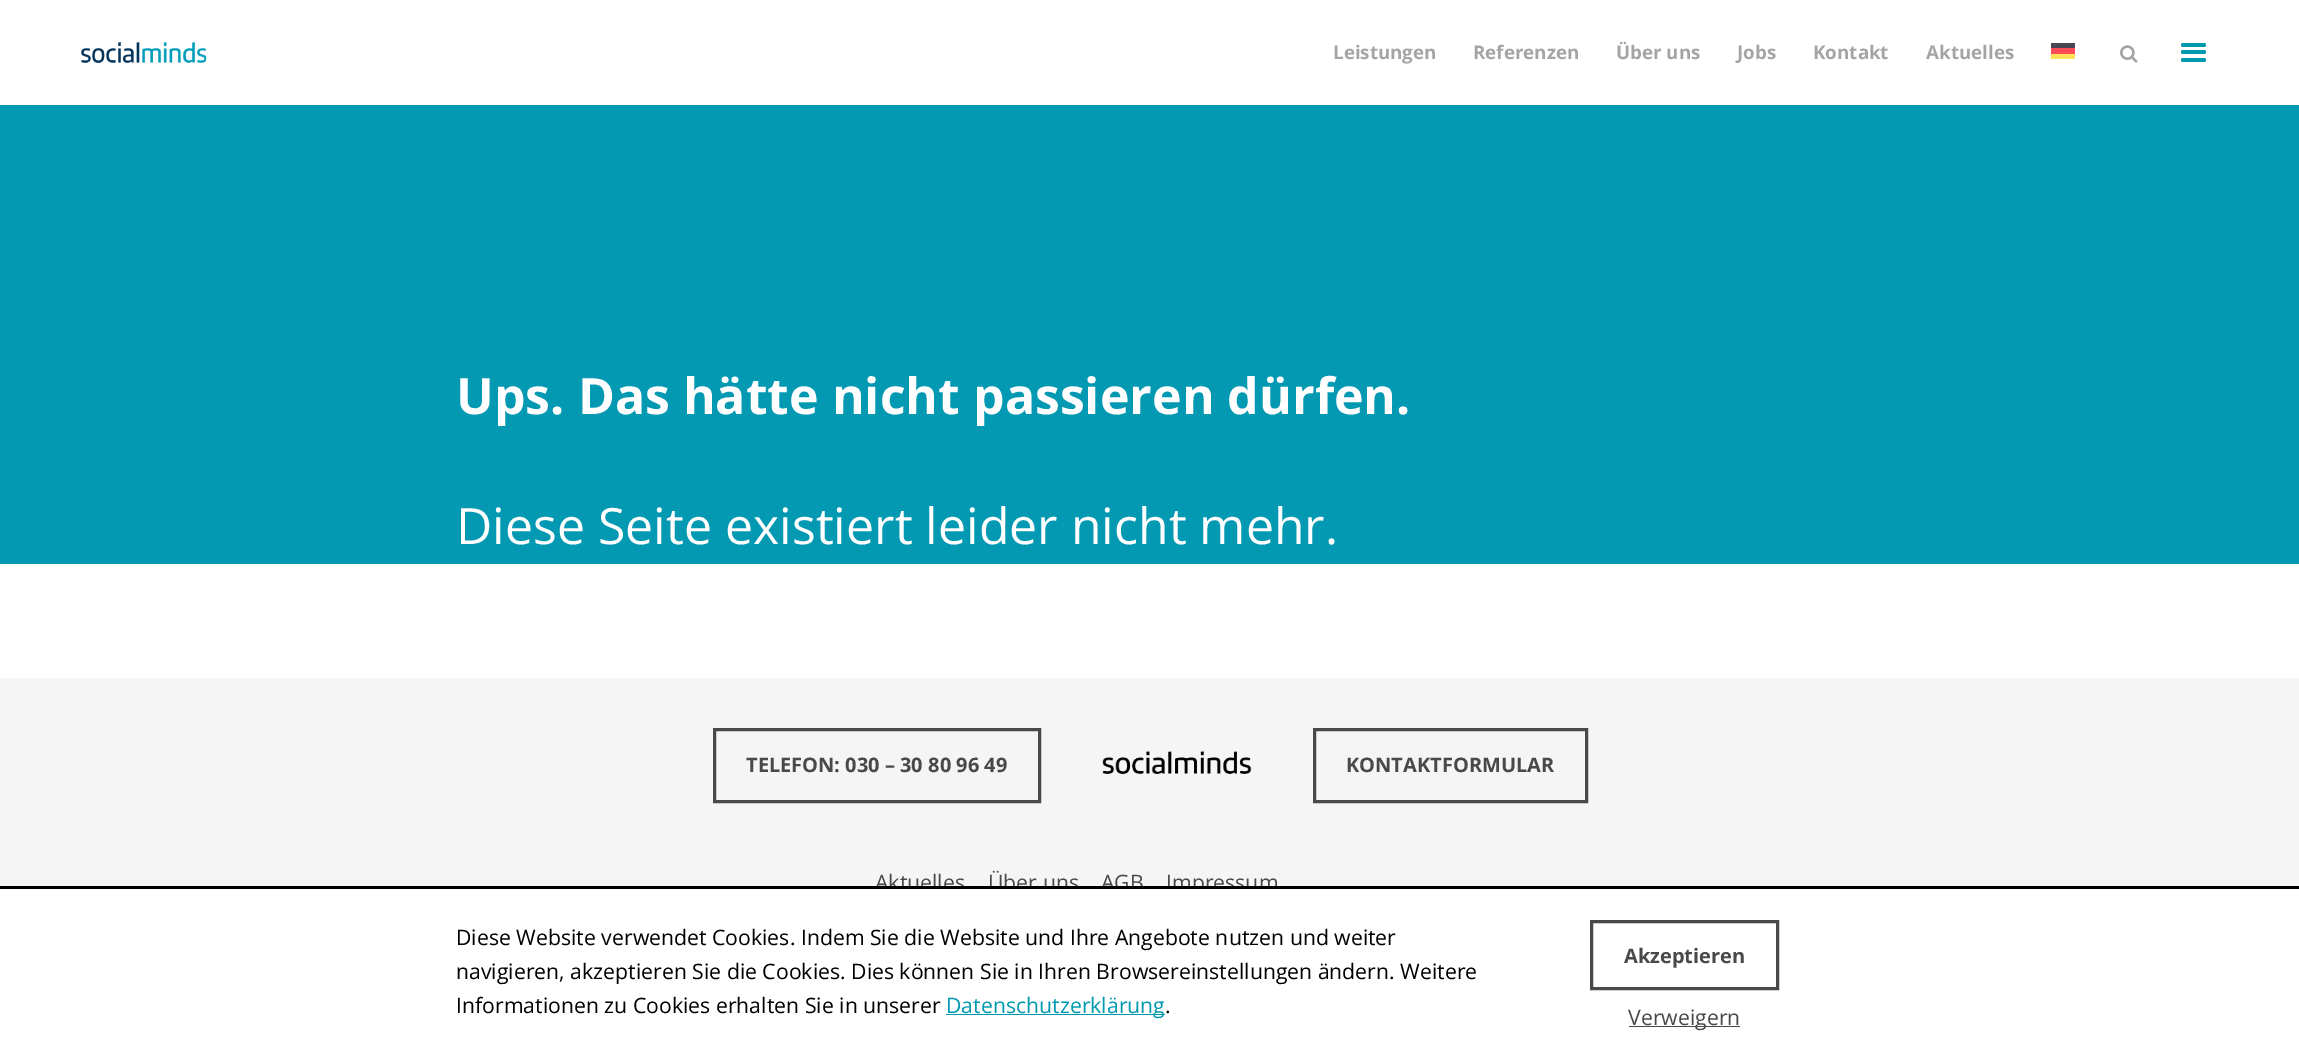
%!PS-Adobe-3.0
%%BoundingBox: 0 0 2299 1062
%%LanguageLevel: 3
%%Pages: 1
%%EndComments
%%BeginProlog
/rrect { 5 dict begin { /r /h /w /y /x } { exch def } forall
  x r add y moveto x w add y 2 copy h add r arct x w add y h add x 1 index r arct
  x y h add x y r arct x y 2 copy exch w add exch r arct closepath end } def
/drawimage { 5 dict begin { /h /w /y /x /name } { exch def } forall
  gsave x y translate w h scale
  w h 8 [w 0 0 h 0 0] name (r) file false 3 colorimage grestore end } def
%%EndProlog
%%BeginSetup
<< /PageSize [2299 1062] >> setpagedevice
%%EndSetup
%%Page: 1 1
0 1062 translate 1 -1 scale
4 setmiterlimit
1 setgray
0 0 2299 1062 rectfill
(images/1.raw) 81 42 126 21 drawimage
0.275 0.275 0.333 setrgbcolor
2051 43 24 5 rectfill
1 0.294 0.333 setrgbcolor
2051 48 24 6 rectfill
1 0.882 0.353 setrgbcolor
2051 54 24 5 rectfill
(images/2.raw) 2120 45 18 18 drawimage
0 0.6 0.686 setrgbcolor
2181 50 25 4 2 rrect fill
2181 43 25 4 2 rrect fill
2181 58 25 4 2 rrect fill
0.012 0.6 0.698 setrgbcolor
0 105 2299 459 rectfill
0.961 setgray
0 678 2299 208 rectfill
0.29 0.286 0.286 setrgbcolor
3 setlinewidth
714.5 729.5 325 72 rectstroke
(images/3.raw) 1102 751 150 23 drawimage
1314.5 729.5 272 72 rectstroke
0 0.6 0.686 setrgbcolor
946 1014 219 1 rectfill
0.29 0.286 0.286 setrgbcolor
1591.5 921.5 186 67 rectstroke
1629 1026 111 1 rectfill
/OpenSans-Bold [18.75 0 0 -18.75 0 0] selectfont
0.643 0.643 0.639 setrgbcolor
1333 59 moveto (Leistungen) show
1473 59 moveto (Referenzen) show
1616 59 moveto (Über uns) show
1737 59 moveto (Jobs) show
1813 59 moveto (Kontakt) show
1926 59 moveto (Aktuelles) show
/OpenSans-Bold [50 0 0 -50 0 0] selectfont
1 setgray
456 414 moveto (Ups. Das hätte nicht passieren dürfen.) show
/OpenSans-Regular [50 0 0 -50 0 0] selectfont
456 544 moveto (Diese Seite existiert leider nicht mehr.) show
/OpenSans-Bold [20 0 0 -20 0 0] selectfont
0.29 0.286 0.286 setrgbcolor
746 772 moveto (TELEFON: 030 – 30 80 96 49) show
1346 772 moveto (KONTAKTFORMULAR) show
/OpenSans-Regular [21.25 0 0 -21.25 0 0] selectfont
875 890 moveto (Aktuelles) show
988 890 moveto (Über uns) show
1101 890 moveto (AGB) show
1166 890 moveto (Impressum) show
1 setgray
875 889 402 7 rectfill
0 setgray
0 886 2299 3 rectfill
456 945 moveto (Diese Website verwendet Cookies. Indem Sie die Website und Ihre Angebote nutzen und weiter) show
456 979 moveto (navigieren, akzeptieren Sie die Cookies. Dies können Sie in Ihren Browsereinstellungen ändern. Weitere) show
456 1013 moveto (Informationen zu Cookies erhalten Sie in unserer) show
0 0.6 0.686 setrgbcolor
946 1013 moveto (Datenschutzerklärung) show
0 setgray
1165 1013 moveto (.) show
/OpenSans-Bold [20 0 0 -20 0 0] selectfont
0.29 0.286 0.286 setrgbcolor
1624 963 moveto (Akzeptieren) show
/OpenSans-Regular [21.25 0 0 -21.25 0 0] selectfont
1628 1025 moveto (Verweigern) show
showpage
%%EOF
